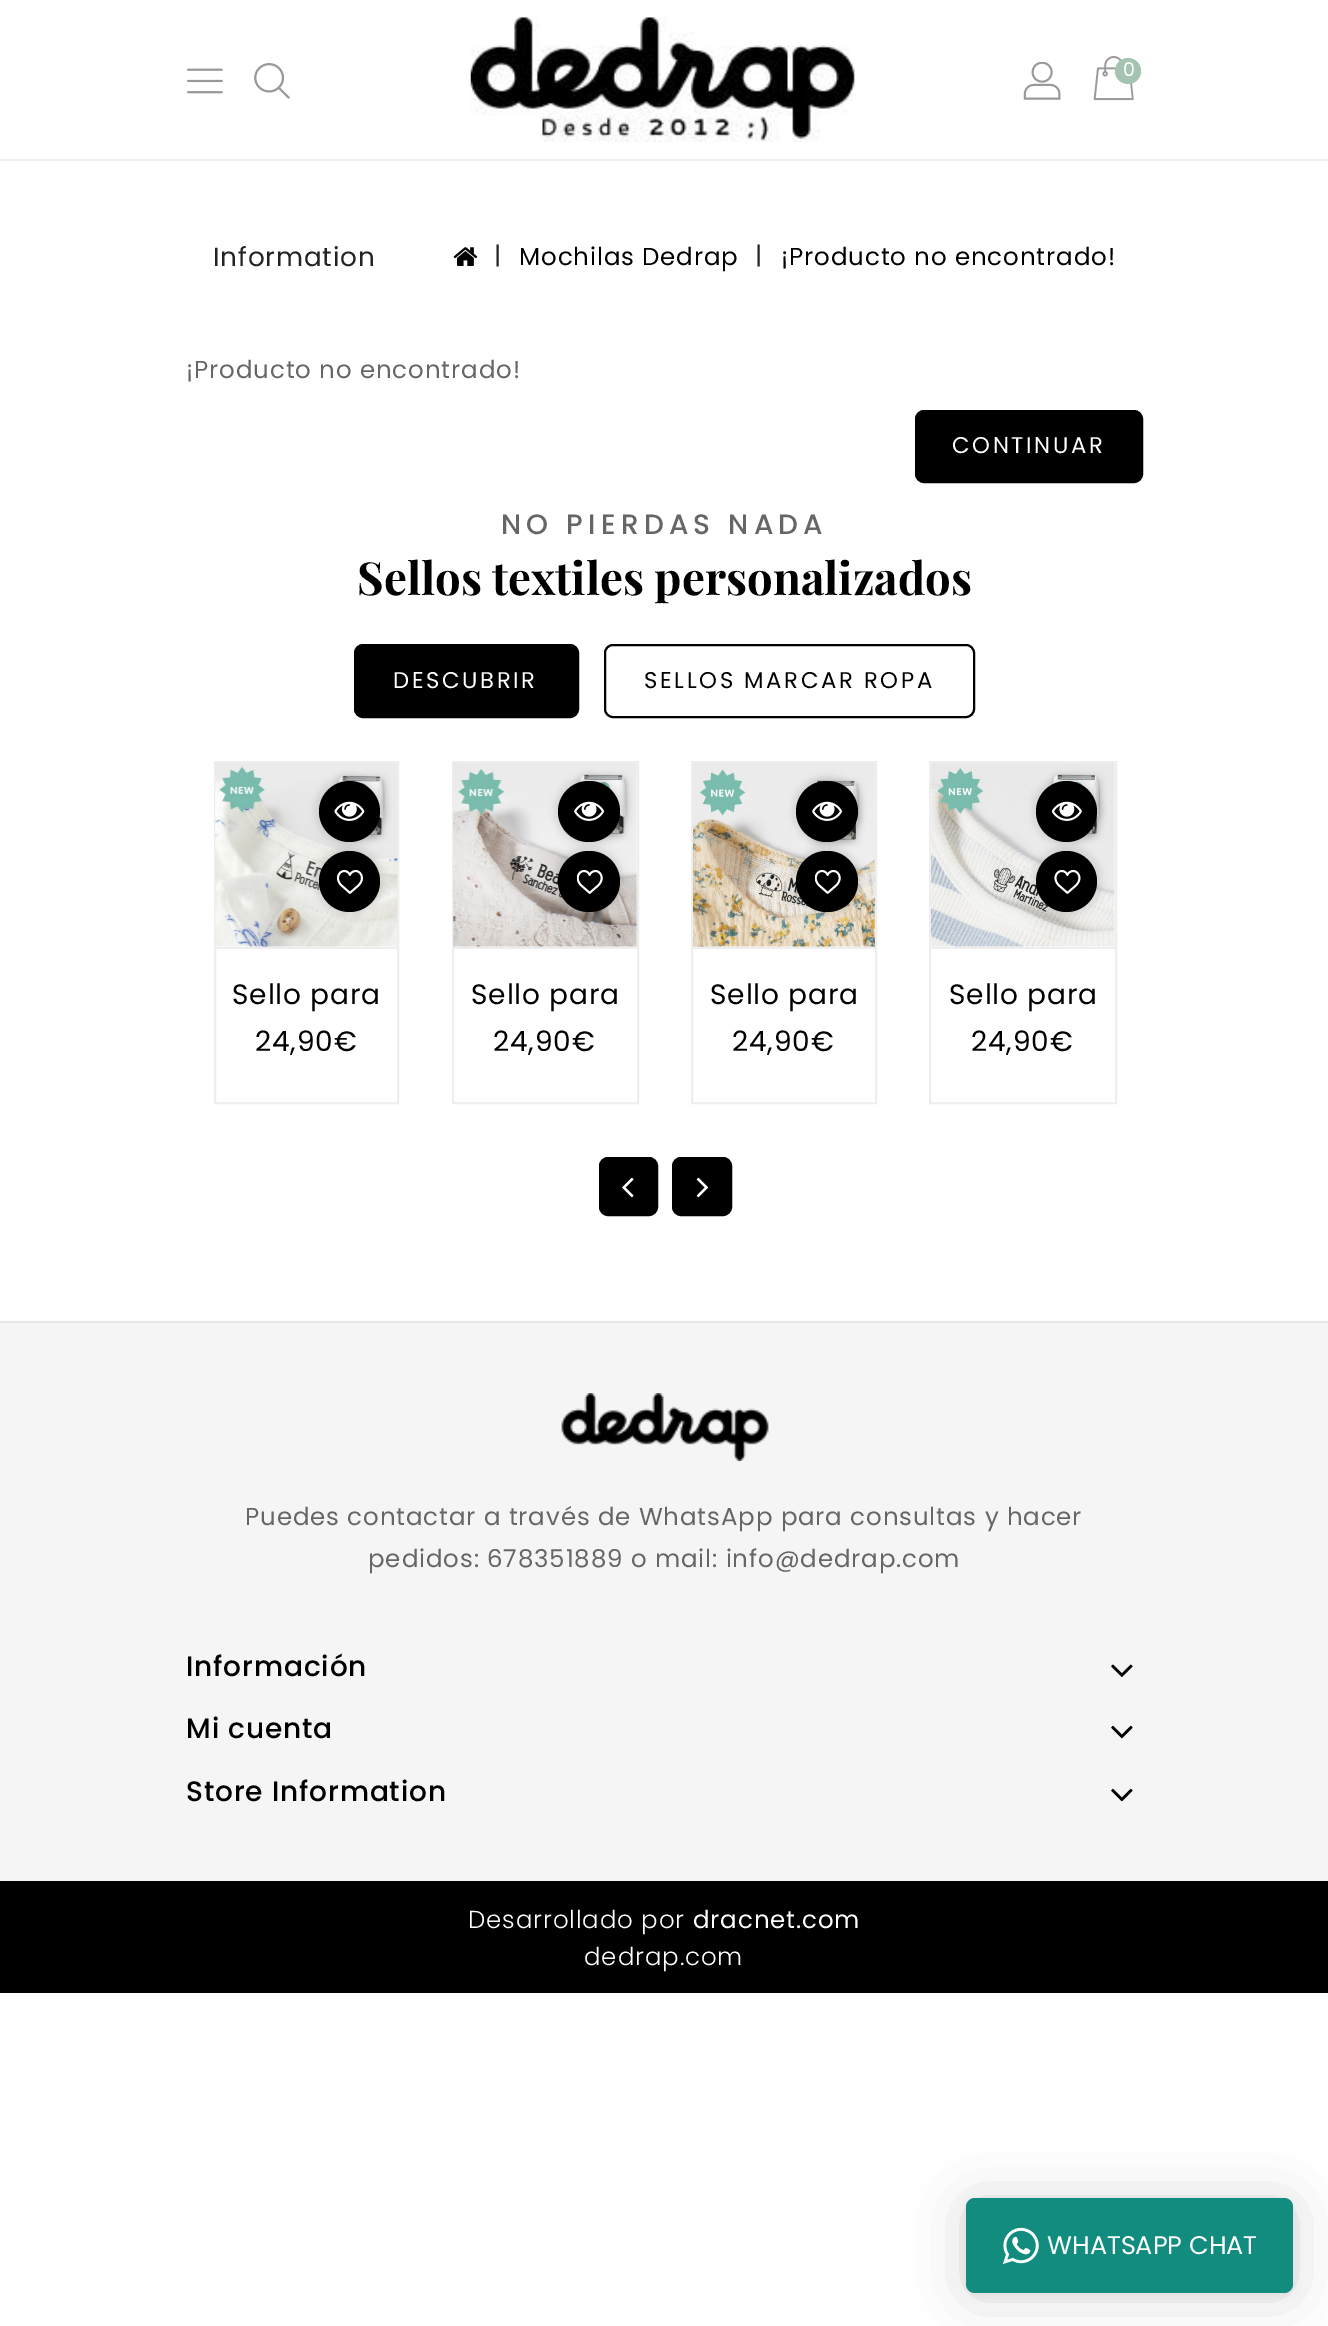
%!PS-Adobe-3.0
%%BoundingBox: 0 0 1328 2326
%%LanguageLevel: 3
%%Pages: 1
%%EndComments
%%BeginProlog
/setalpha { dup .setfillconstantalpha .setstrokeconstantalpha } def
/rrect { 5 dict begin { /r /h /w /y /x } { exch def } forall
  x r add y moveto x w add y 2 copy h add r arct x w add y h add x 1 index r arct
  x y h add x y r arct x y 2 copy exch w add exch r arct closepath end } def
/softshadow { 12 dict begin { /a /b /q /h /w /y /x } { exch def } forall gsave /was 0 def
  9 -2 -9 { dup b mul 4 div /e exch def 1 sub .425 mul 2.718 exch exp 1 add a .99 .min exch div /now exch def
    1 1 now sub 1 was sub div sub setalpha /was now def
    w h .min e 2 mul add 0 gt { x e sub y e sub w e 2 mul add h e 2 mul add
      q e add b .6 mul add w h .min 2 div e add .min 0 .max rrect fill } if } for grestore end } def
/drawimage { 5 dict begin { /h /w /y /x /name } { exch def } forall
  gsave x y translate w h scale
  w h 8 [w 0 0 h 0 0] name (r) file false 3 colorimage grestore end } def
%%EndProlog
%%BeginSetup
<< /PageSize [1328 2326] /PageUsesTransparency true >> setpagedevice
%%EndSetup
%%Page: 1 1
0 .pushpdf14devicefilter
0 2326 translate 1 -1 scale
4 setmiterlimit
1 setgray
0 0 1328 2326 rectfill
0.933 setgray
0 159 1328 2 rectfill
(images/1.raw) 187 68 36 26 drawimage
(images/2.raw) 254 63 36 36 drawimage
(images/3.raw) 470 17 385 125 drawimage
(images/4.raw) 1023 62 38 38 drawimage
(images/5.raw) 1093 56 41 45 drawimage
0.643 0.765 0.694 setrgbcolor
newpath 1128 71 13 0 360 arc closepath fill
(images/6.raw) 453 247 25 19 drawimage
0 setgray
916 411 226 71 8 rrect gsave fill grestore
2 setlinewidth
stroke
355 645 223 72 8 rrect gsave fill grestore
stroke
605 645 369 72 8 rrect stroke
0.933 setgray
215 762 183 341 rectstroke
(images/7.raw) 215 763 183 184 drawimage
0 setgray
315 777 68 68 34 3.5 0.1 softshadow
newpath 349.5 811.5 30.5 0 360 arc closepath fill
(images/8.raw) 334 801 31 20 drawimage
315 847 68 68 34 3.5 0.1 softshadow
newpath 349.5 881.5 30.5 0 360 arc closepath fill
(images/9.raw) 337 869 26 25 drawimage
0.933 setgray
215 947 182 2 rectfill
453 762 185 341 rectstroke
(images/10.raw) 453 763 185 184 drawimage
0 setgray
555 777 68 68 34 3.5 0.1 softshadow
558 781 62 61 30.5 rrect fill
(images/11.raw) 574 801 30 20 drawimage
555 847 68 68 34 3.5 0.1 softshadow
558 851 62 61 30.5 rrect fill
(images/12.raw) 577 869 26 25 drawimage
0.933 setgray
453 947 184 2 rectfill
692 762 184 341 rectstroke
(images/13.raw) 693 763 182 184 drawimage
0 setgray
793 777 68 68 34 3.5 0.1 softshadow
796 781 62 61 30.5 rrect fill
(images/11.raw) 812 801 30 20 drawimage
793 847 68 68 34 3.5 0.1 softshadow
796 851 62 61 30.5 rrect fill
(images/12.raw) 815 869 26 25 drawimage
0.933 setgray
693 947 182 2 rectfill
930 762 186 341 rectstroke
(images/14.raw) 931 763 184 184 drawimage
0 setgray
1033 777 68 68 34 3.5 0.1 softshadow
newpath 1066.5 811.5 30.5 0 360 arc closepath fill
(images/15.raw) 1052 801 30 20 drawimage
1033 847 68 68 34 3.5 0.1 softshadow
newpath 1066.5 881.5 30.5 0 360 arc closepath fill
(images/16.raw) 1054 869 27 25 drawimage
0.933 setgray
931 947 184 2 rectfill
0 setgray
600 1158 57 57 8 rrect gsave fill grestore
stroke
(images/17.raw) 622 1177 12 21 drawimage
673 1158 58 57 8 rrect gsave fill grestore
stroke
(images/18.raw) 696 1177 13 21 drawimage
0.961 setgray
0 1323 1328 558 rectfill
0.906 setgray
0 1321 1328 2 rectfill
(images/19.raw) 561 1393 208 69 drawimage
(images/20.raw) 1111 1664 22 13 drawimage
(images/21.raw) 1111 1725 22 14 drawimage
(images/21.raw) 1111 1788 22 14 drawimage
0 setgray
0 1881 1328 112 rectfill
966 2202 327 94 9 28 0.16 softshadow
966 2200 327 94 9 5 0.06 softshadow
0.071 0.549 0.494 setrgbcolor
966 2198 327 95 9 rrect fill
(images/22.raw) 1002 2227 37 38 drawimage
/Poppins-Regular [19 0 0 -19 0 0] selectfont
1 setgray
1123 76 moveto (0) show
/Poppins-Regular [26.25 0 0 -26.25 0 0] selectfont
0.137 setgray
213 266 moveto 0.88 0 (Information) ashow
/Poppins-Regular [24.5 0 0 -24.5 0 0] selectfont
494 264 moveto 0.88 0 (|) ashow
0 setgray
519 265 moveto 0.88 0 (Mochilas Dedrap) ashow
0.137 setgray
755 264 moveto 0.88 0 (|) ashow
0 setgray
781 265 moveto 0.88 0 (¡Producto no encontrado!) ashow
0.4 setgray
186 378 moveto 0.88 0 (¡Producto no encontrado!) ashow
/Poppins-Regular [22.75 0 0 -22.75 0 0] selectfont
1 setgray
952 453 moveto 2.6 0 (CONTINUAR) ashow
/Poppins-Medium [28 0 0 -28 0 0] selectfont
0.4 setgray
501 534 moveto 5.25 0 (NO PIERDAS NADA) ashow
/PlayfairDisplay-Bold [45.5 0 0 -45.5 0 0] selectfont
0 setgray
357 595 moveto (Sellos textiles personalizados) show
/Poppins-Regular [22.75 0 0 -22.75 0 0] selectfont
1 setgray
393 688 moveto 2.6 0 (DESCUBRIR) ashow
0 setgray
644 688 moveto 2.6 0 (SELLOS MARCAR ROPA) ashow
/Poppins-Regular [28 0 0 -28 0 0] selectfont
232 1004 moveto 0.88 0 (Sello para) ashow
255 1051 moveto 0.88 0 (24,90€) ashow
471 1004 moveto 0.88 0 (Sello para) ashow
493 1051 moveto 0.88 0 (24,90€) ashow
710 1004 moveto 0.88 0 (Sello para) ashow
732 1051 moveto 0.88 0 (24,90€) ashow
949 1004 moveto 0.88 0 (Sello para) ashow
971 1051 moveto 0.88 0 (24,90€) ashow
/Poppins-Regular [24.5 0 0 -24.5 0 0] selectfont
0.4 setgray
245 1525 moveto 0.88 0 (Puedes contactar a través de WhatsApp para consultas y hacer) ashow
368 1567 moveto 0.88 0 (pedidos: 678351889 o mail: info@dedrap.com) ashow
/Poppins-Medium [28 0 0 -28 0 0] selectfont
0 setgray
186 1676 moveto 0.88 0 (Información) ashow
186 1738 moveto 0.88 0 (Mi cuenta) ashow
186 1801 moveto 0.88 0 (Store Information) ashow
/Poppins-Light [24.5 0 0 -24.5 0 0] selectfont
1 setgray
468 1928 moveto 0.88 0 (Desarrollado por) ashow
/Poppins-Regular [24.5 0 0 -24.5 0 0] selectfont
693 1928 moveto 0.88 0 (dracnet.com) ashow
/Poppins-Light [24.5 0 0 -24.5 0 0] selectfont
584 1965 moveto 0.88 0 (dedrap.com) ashow
/Poppins-Regular [25.5 0 0 -25.5 0 0] selectfont
1047 2254 moveto (WHATSAPP CHAT) show
.poppdf14devicefilter showpage
%%EOF
